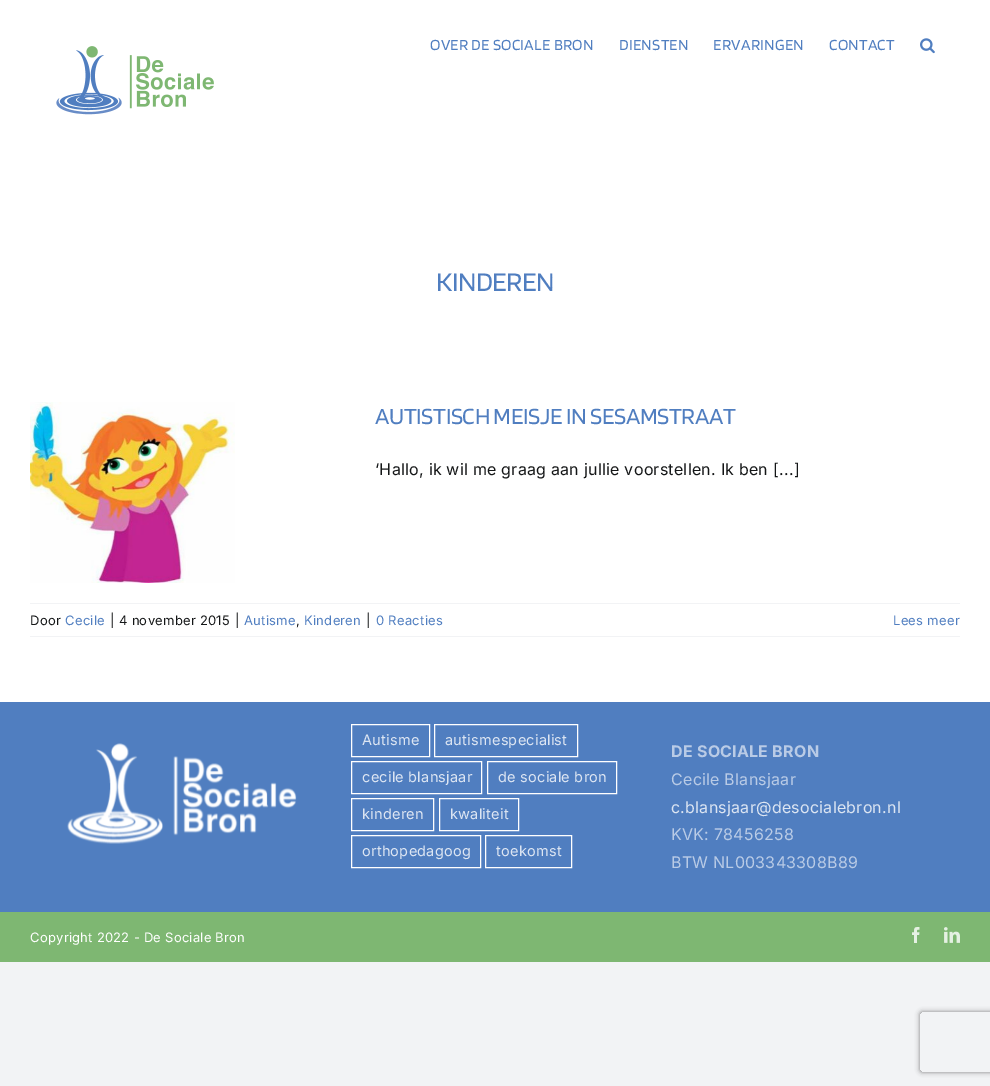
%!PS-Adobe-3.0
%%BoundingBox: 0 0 990 1086
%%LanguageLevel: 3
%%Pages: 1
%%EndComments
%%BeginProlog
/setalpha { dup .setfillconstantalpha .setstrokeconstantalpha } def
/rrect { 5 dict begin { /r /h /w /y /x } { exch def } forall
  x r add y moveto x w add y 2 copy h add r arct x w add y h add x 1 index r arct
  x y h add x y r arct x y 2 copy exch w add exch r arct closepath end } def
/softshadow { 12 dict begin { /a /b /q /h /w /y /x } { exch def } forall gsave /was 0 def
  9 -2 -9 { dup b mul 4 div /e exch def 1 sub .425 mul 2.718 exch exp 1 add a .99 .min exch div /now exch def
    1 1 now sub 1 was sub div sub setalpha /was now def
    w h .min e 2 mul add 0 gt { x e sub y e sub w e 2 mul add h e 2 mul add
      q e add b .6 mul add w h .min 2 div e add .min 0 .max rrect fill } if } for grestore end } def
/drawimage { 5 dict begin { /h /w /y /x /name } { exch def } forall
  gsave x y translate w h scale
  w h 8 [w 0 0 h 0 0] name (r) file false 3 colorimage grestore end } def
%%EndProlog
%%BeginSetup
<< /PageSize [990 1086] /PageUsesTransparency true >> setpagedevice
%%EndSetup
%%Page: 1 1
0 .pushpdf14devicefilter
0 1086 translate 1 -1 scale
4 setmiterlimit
0.949 0.953 0.961 setrgbcolor
0 0 990 1086 rectfill
1 setgray
0 0 990 702 rectfill
(images/1.raw) 56 46 158 69 drawimage
(images/2.raw) 920 38 15 16 drawimage
(images/3.raw) 30 402 205 181 drawimage
0.949 0.953 0.961 setrgbcolor
30 603 930 1 rectfill
30 636 930 1 rectfill
0.314 0.494 0.753 setrgbcolor
0 702 990 210 rectfill
(images/4.raw) 67 743 230 101 drawimage
1 setgray
351.5 724.5 78 32 rectstroke
434.5 724.5 143 32 rectstroke
351.5 761.5 130 32 rectstroke
487.5 761.5 129 32 rectstroke
351.5 798.5 82 32 rectstroke
439.5 798.5 79 32 rectstroke
351.5 835.5 129 32 rectstroke
485.5 835.5 86 32 rectstroke
0.494 0.718 0.447 setrgbcolor
0 912 990 50 rectfill
(images/5.raw) 912 927 8 16 drawimage
(images/6.raw) 944 927 16 16 drawimage
gsave
newpath 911 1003 moveto 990 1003 lineto 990 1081 lineto 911 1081 lineto closepath 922 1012 moveto 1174 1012 lineto 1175 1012 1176 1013 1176 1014 curveto 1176 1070 lineto 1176 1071 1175 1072 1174 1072 curveto 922 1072 lineto 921 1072 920 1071 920 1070 curveto 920 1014 lineto 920 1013 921 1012 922 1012 curveto closepath eoclip newpath
0.502 setgray
920 1012 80 60 2 2.5 1 softshadow
grestore
/Blinker-Regular [16 0 0 -16 0 0] selectfont
0.314 0.494 0.753 setrgbcolor
430 50 moveto 0.25 0 (OVER DE SOCIALE BRON) ashow
619 50 moveto 0.25 0 (DIENSTEN) ashow
713 50 moveto 0.25 0 (ERVARINGEN) ashow
829 50 moveto 0.25 0 (CONTACT) ashow
/Blinker-Regular [28 0 0 -28 0 0] selectfont
436 291 moveto -0.5 0 (KINDEREN) ashow
/Blinker-Regular [24 0 0 -24 0 0] selectfont
375 424 moveto -0.35 0 (AUTISTISCH MEISJE IN SESAMSTRAAT) ashow
/Inter-Regular [16 0 0 -16 0 0] selectfont
0.078 0.086 0.09 setrgbcolor
375 475 moveto 0.25 0 (‘Hallo, ik wil me graag aan jullie voorstellen. Ik ben [...]) ashow
/Inter-Regular [13 0 0 -13 0 0] selectfont
30 625 moveto 0.25 0 (Door) ashow
0.314 0.494 0.753 setrgbcolor
65 625 moveto 0.25 0 (Cecile) ashow
0.078 0.086 0.09 setrgbcolor
110 625 moveto 0.25 0 (|) ashow
119 625 moveto 0.25 0 (4 november 2015) ashow
235 625 moveto 0.25 0 (|) ashow
0.314 0.494 0.753 setrgbcolor
244 625 moveto 0.25 0 (Autisme) ashow
0.078 0.086 0.09 setrgbcolor
296 625 moveto 0.25 0 (,) ashow
0.314 0.494 0.753 setrgbcolor
304 625 moveto 0.25 0 (Kinderen) ashow
0.078 0.086 0.09 setrgbcolor
366 625 moveto 0.25 0 (|) ashow
0.314 0.494 0.753 setrgbcolor
376 625 moveto 0.25 0 (0 Reacties) ashow
893 625 moveto 0.25 0 (Lees meer) ashow
/Inter-Regular [14.5 0 0 -14.5 0 0] selectfont
0.863 0.898 0.949 setrgbcolor
362 745 moveto 0.25 0 (Autisme) ashow
445 745 moveto 0.25 0 (autismespecialist) ashow
362 782 moveto 0.25 0 (cecile blansjaar) ashow
498 782 moveto 0.25 0 (de sociale bron) ashow
362 819 moveto 0.25 0 (kinderen) ashow
450 819 moveto 0.25 0 (kwaliteit) ashow
362 856 moveto 0.25 0 (orthopedagoog) ashow
496 856 moveto 0.25 0 (toekomst) ashow
/Inter-Bold [16 0 0 -16 0 0] selectfont
0.725 0.796 0.902 setrgbcolor
671 757 moveto 0.25 0 (DE SOCIALE BRON) ashow
/Inter-Regular [16 0 0 -16 0 0] selectfont
671 785 moveto 0.25 0 (Cecile Blansjaar) ashow
0.863 0.898 0.949 setrgbcolor
671 813 moveto 0.25 0 (c.blansjaar@desocialebron.nl) ashow
0.725 0.796 0.902 setrgbcolor
671 840 moveto 0.25 0 (KVK: 78456258) ashow
671 868 moveto 0.25 0 (BTW NL003343308B89) ashow
/Inter-Regular [13 0 0 -13 0 0] selectfont
1 setgray
30 942 moveto 0.25 0 (Copyright 2022 - De Sociale Bron) ashow
.poppdf14devicefilter showpage
%%EOF
